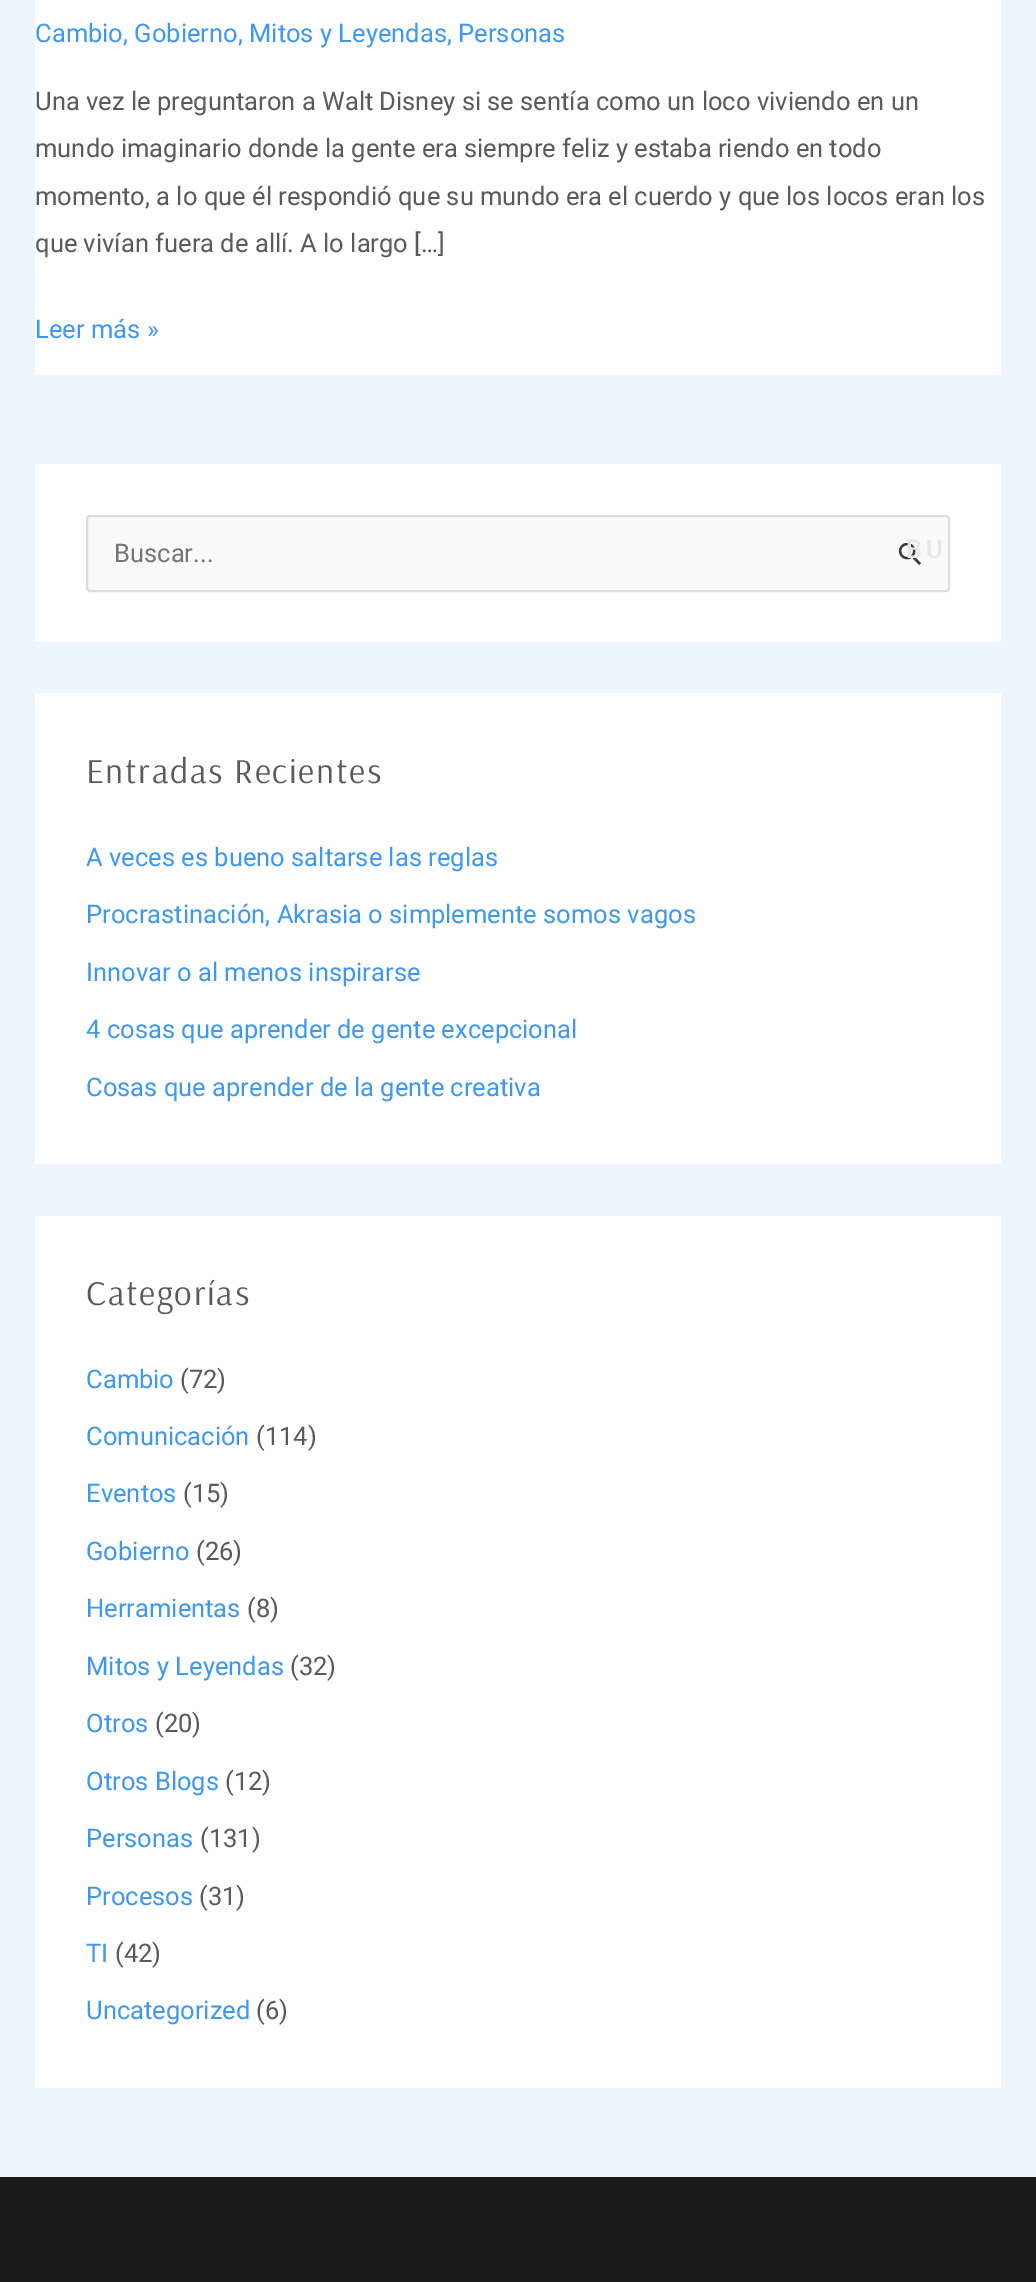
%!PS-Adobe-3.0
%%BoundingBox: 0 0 1036 2282
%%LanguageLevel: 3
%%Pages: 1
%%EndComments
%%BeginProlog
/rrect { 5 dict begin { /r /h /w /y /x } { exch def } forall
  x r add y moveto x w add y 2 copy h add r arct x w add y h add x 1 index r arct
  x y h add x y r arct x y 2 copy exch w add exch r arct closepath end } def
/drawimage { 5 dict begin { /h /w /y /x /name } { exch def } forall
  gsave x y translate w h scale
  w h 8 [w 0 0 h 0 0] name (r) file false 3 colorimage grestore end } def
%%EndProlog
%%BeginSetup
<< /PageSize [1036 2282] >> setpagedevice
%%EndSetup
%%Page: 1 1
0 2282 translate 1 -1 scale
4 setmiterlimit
0.929 0.965 1 setrgbcolor
0 0 1036 2282 rectfill
0.996 setgray
35 0 966 375 rectfill
35 464 966 178 rectfill
0.98 setgray
87 516 862 75 3 rrect gsave fill grestore
0.867 setgray
2 setlinewidth
stroke
(images/1.raw) 898 543 23 22 drawimage
0.996 setgray
35 693 966 471 rectfill
35 1216 966 872 rectfill
0.102 setgray
0 2177 1036 105 rectfill
/Roboto-Regular [25.55 0 0 -25.55 0 0] selectfont
0.243 0.596 0.933 setrgbcolor
35 42 moveto (Cambio, Gobierno, Mitos y Leyendas, Personas) show
0.353 setgray
35 110 moveto (Una vez le preguntaron a Walt Disney si se sentía como un loco viviendo en un) show
35 157 moveto (mundo imaginario donde la gente era siempre feliz y estaba riendo en todo) show
35 205 moveto (momento, a lo que él respondió que su mundo era el cuerdo y que los locos eran los) show
35 252 moveto (que vivían fuera de allí. A lo largo […]) show
0.243 0.596 0.933 setrgbcolor
35 338 moveto (Leer más ») show
0.459 setgray
114 562 moveto (Buscar...) show
/Roboto-Medium [25.55 0 0 -25.55 0 0] selectfont
0.906 setgray
906 558 moveto 4 0 (BU) ashow
/Arsenal-Regular [35 0 0 -35 0 0] selectfont
0.353 setgray
86 783 moveto 1.75 0 (Entradas Recientes) ashow
/Roboto-Regular [25.55 0 0 -25.55 0 0] selectfont
0.243 0.596 0.933 setrgbcolor
86 866 moveto (A veces es bueno saltarse las reglas) show
86 923 moveto (Procrastinación, Akrasia o simplemente somos vagos) show
86 981 moveto (Innovar o al menos inspirarse) show
86 1038 moveto (4 cosas que aprender de gente excepcional) show
86 1096 moveto (Cosas que aprender de la gente creativa) show
/Arsenal-Regular [35 0 0 -35 0 0] selectfont
0.353 setgray
86 1305 moveto 1.75 0 (Categorías) ashow
/Roboto-Regular [25.55 0 0 -25.55 0 0] selectfont
0.243 0.596 0.933 setrgbcolor
86 1388 moveto (Cambio) show
0.353 setgray
180 1388 moveto (\(72\)) show
0.243 0.596 0.933 setrgbcolor
86 1445 moveto (Comunicación) show
0.353 setgray
256 1445 moveto (\(114\)) show
0.243 0.596 0.933 setrgbcolor
86 1502 moveto (Eventos) show
0.353 setgray
183 1502 moveto (\(15\)) show
0.243 0.596 0.933 setrgbcolor
86 1560 moveto (Gobierno) show
0.353 setgray
196 1560 moveto (\(26\)) show
0.243 0.596 0.933 setrgbcolor
86 1617 moveto (Herramientas) show
0.353 setgray
247 1617 moveto (\(8\)) show
0.243 0.596 0.933 setrgbcolor
86 1675 moveto (Mitos y Leyendas) show
0.353 setgray
290 1675 moveto (\(32\)) show
0.243 0.596 0.933 setrgbcolor
86 1732 moveto (Otros) show
0.353 setgray
155 1732 moveto (\(20\)) show
0.243 0.596 0.933 setrgbcolor
86 1790 moveto (Otros Blogs) show
0.353 setgray
225 1790 moveto (\(12\)) show
0.243 0.596 0.933 setrgbcolor
86 1847 moveto (Personas) show
0.353 setgray
200 1847 moveto (\(131\)) show
0.243 0.596 0.933 setrgbcolor
86 1905 moveto (Procesos) show
0.353 setgray
199 1905 moveto (\(31\)) show
0.243 0.596 0.933 setrgbcolor
86 1962 moveto (TI) show
0.353 setgray
115 1962 moveto (\(42\)) show
0.243 0.596 0.933 setrgbcolor
86 2019 moveto (Uncategorized) show
0.353 setgray
256 2019 moveto (\(6\)) show
showpage
%%EOF
